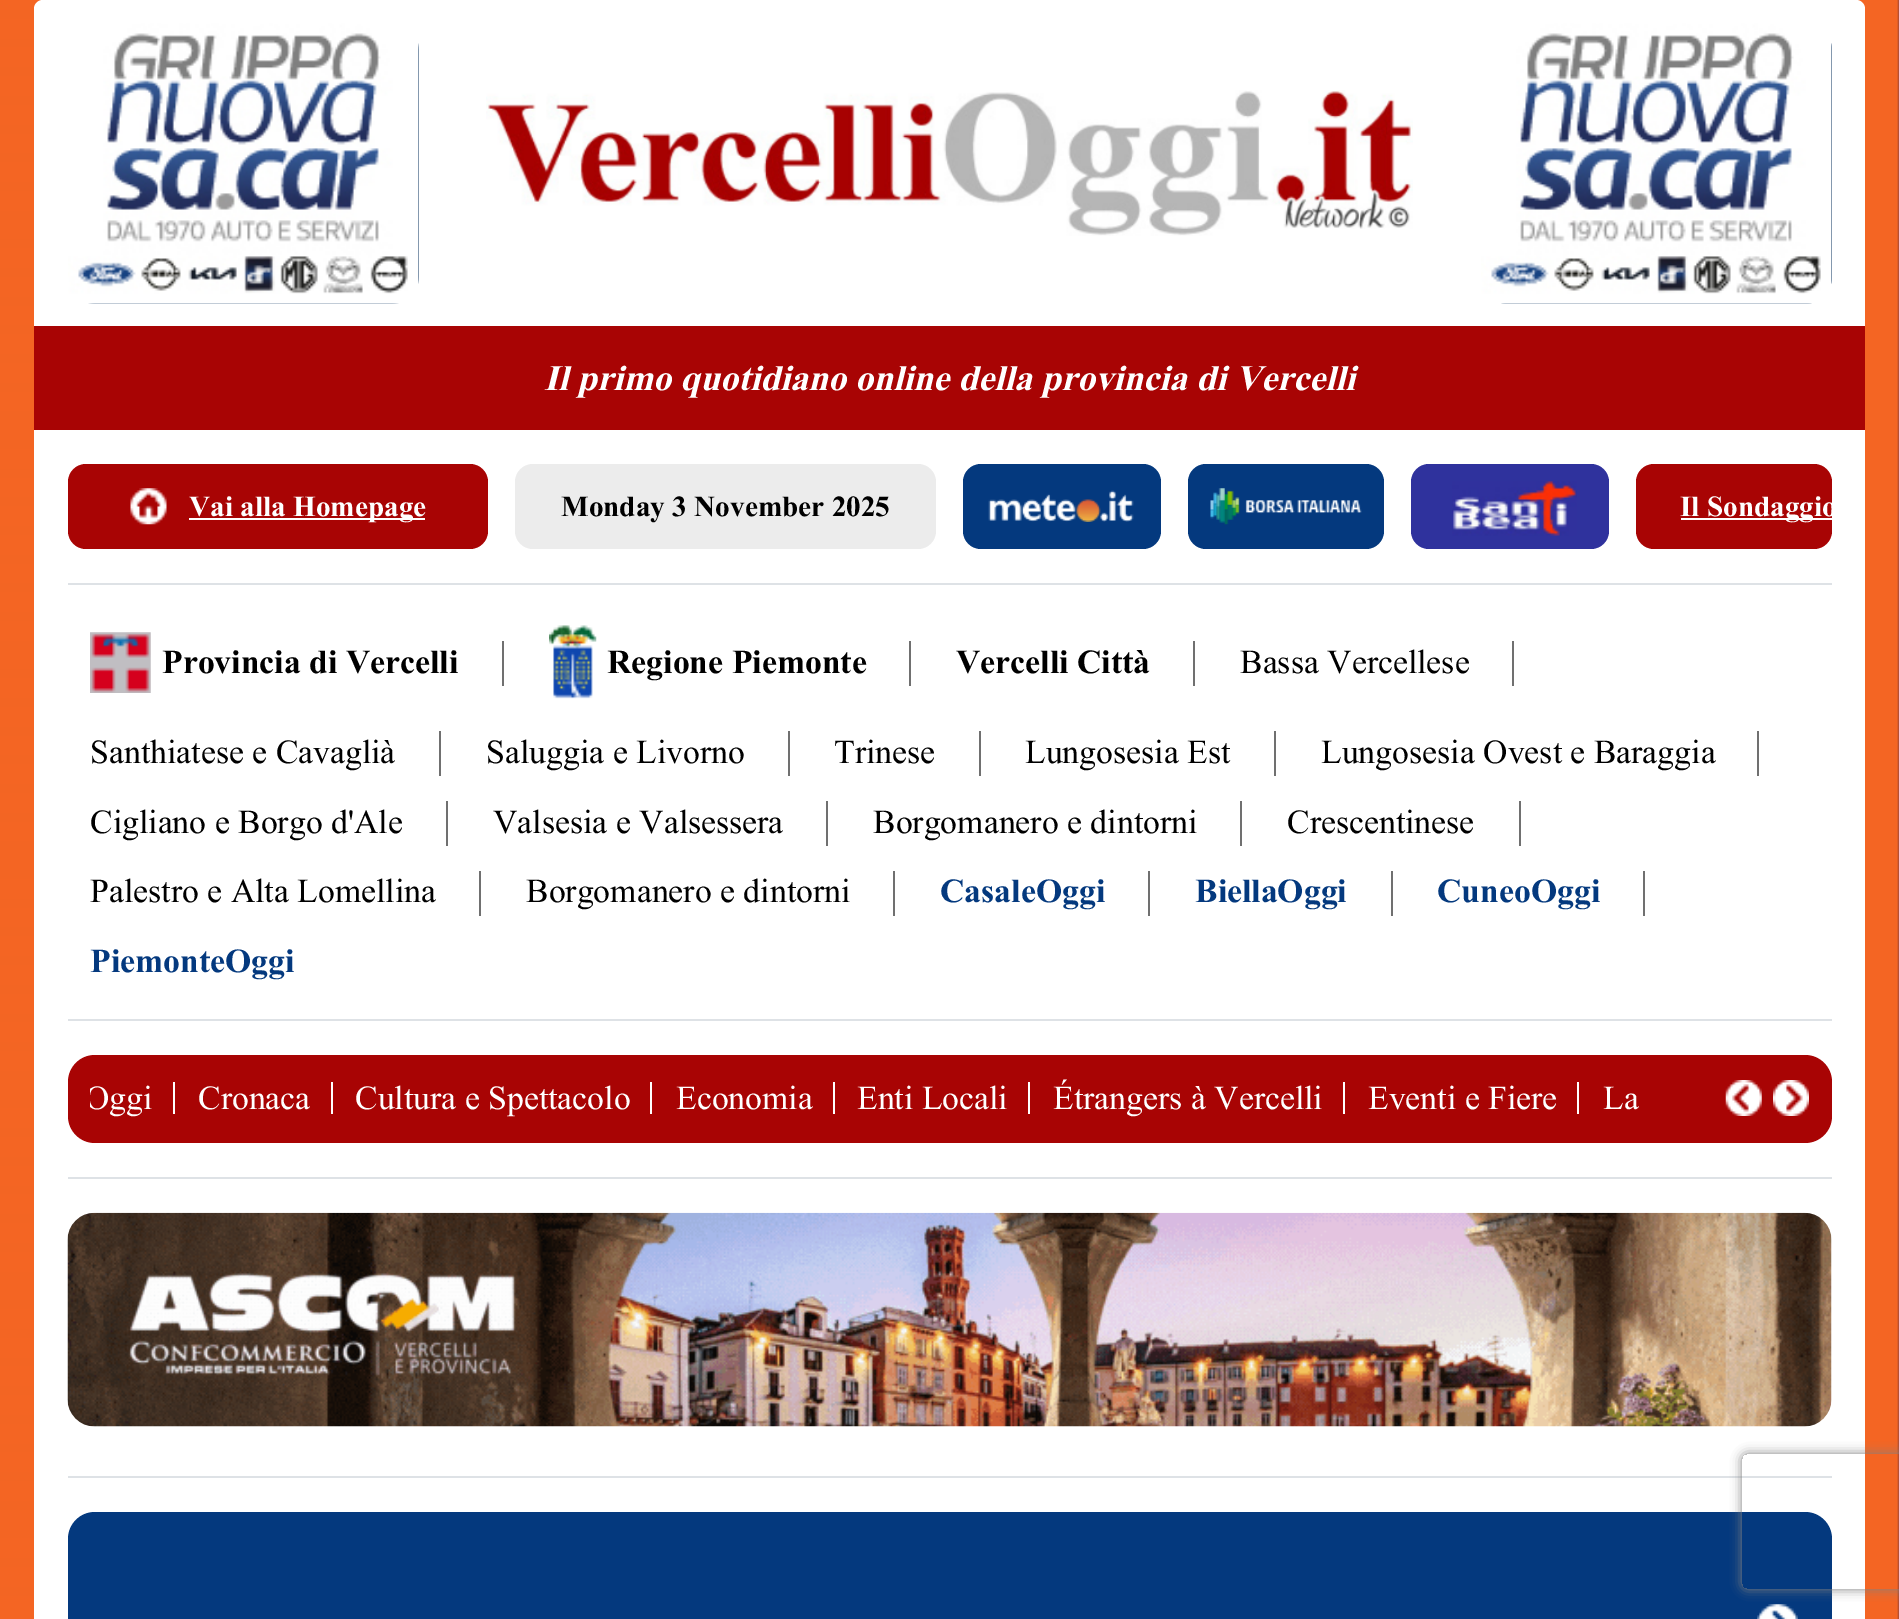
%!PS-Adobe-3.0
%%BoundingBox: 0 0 1899 1619
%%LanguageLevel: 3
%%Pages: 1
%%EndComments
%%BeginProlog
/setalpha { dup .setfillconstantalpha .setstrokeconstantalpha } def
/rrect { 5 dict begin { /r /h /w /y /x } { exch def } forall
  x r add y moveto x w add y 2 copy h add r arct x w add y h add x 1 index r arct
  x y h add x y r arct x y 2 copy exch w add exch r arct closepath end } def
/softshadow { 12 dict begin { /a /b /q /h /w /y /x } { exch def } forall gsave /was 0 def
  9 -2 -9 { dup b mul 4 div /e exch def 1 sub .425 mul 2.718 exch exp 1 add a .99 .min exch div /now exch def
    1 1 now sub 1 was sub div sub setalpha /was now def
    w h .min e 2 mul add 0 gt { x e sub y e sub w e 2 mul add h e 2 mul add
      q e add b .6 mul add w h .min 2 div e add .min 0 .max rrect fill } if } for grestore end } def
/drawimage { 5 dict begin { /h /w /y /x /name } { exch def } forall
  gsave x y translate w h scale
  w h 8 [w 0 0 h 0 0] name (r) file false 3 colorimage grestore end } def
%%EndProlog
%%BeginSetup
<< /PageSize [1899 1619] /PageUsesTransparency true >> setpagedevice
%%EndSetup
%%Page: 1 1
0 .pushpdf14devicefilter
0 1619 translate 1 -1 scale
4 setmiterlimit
1 setgray
0 0 1899 1619 rectfill
(images/1.raw) 0 0 1899 1619 drawimage
newpath 43 0 moveto 1856 0 lineto 1861 0 1865 4 1865 9 curveto 1865 326 lineto 34 326 lineto 34 9 lineto 34 4 38 0 43 0 curveto closepath fill
0.031 0.192 0.365 setrgbcolor
68 23 351 281 27 rrect fill
(images/2.raw) 68 23 351 281 drawimage
(images/3.raw) 486 90 927 146 drawimage
1481 23 351 281 27 rrect fill
(images/4.raw) 1481 23 351 281 drawimage
0.659 0.016 0.016 setrgbcolor
34 326 1831 104 rectfill
1 setgray
34 430 1831 1189 rectfill
0.871 0.886 0.902 setrgbcolor
68 583 1764 2 rectfill
0.659 0.016 0.016 setrgbcolor
68 464 420 85 18 rrect fill
(images/5.raw) 130 488 37 37 drawimage
1 setgray
189 518 236 2 rectfill
0.925 setgray
515 464 421 85 18 rrect fill
0.016 0.224 0.494 setrgbcolor
963 464 198 85 18 rrect fill
(images/6.raw) 988 490 146 32 drawimage
1188 464 196 85 18 rrect fill
(images/7.raw) 1210 488 152 37 drawimage
0.184 0.196 0.616 setrgbcolor
1411 464 198 85 18 rrect fill
(images/8.raw) 1452 481 125 55 drawimage
0.659 0.016 0.016 setrgbcolor
1636 464 196 85 18 rrect fill
1 setgray
1681 518 155 2 rectfill
(images/9.raw) 90 632 61 61 drawimage
0.439 setgray
502 641 2 45 rectfill
(images/10.raw) 549 625 48 74 drawimage
909 641 2 45 rectfill
1193 641 2 45 rectfill
1512 641 2 45 rectfill
439 731 2 45 rectfill
788 731 2 45 rectfill
979 731 2 45 rectfill
1274 731 2 45 rectfill
1757 731 2 45 rectfill
446 801 2 45 rectfill
826 801 2 45 rectfill
1240 801 2 45 rectfill
1519 801 2 45 rectfill
479 871 2 45 rectfill
893 871 2 45 rectfill
1148 871 2 45 rectfill
1391 871 2 45 rectfill
1643 871 2 45 rectfill
0.871 0.886 0.902 setrgbcolor
68 1019 1764 2 rectfill
0.659 0.016 0.016 setrgbcolor
68 1055 1764 88 27 rrect fill
1 setgray
173 1082 2 32 rectfill
331 1082 2 32 rectfill
650 1082 2 32 rectfill
833 1082 2 32 rectfill
1028 1082 2 32 rectfill
1343 1082 2 32 rectfill
1577 1082 2 32 rectfill
(images/11.raw) 1725 1080 37 36 drawimage
(images/12.raw) 1773 1080 36 36 drawimage
0.871 0.886 0.902 setrgbcolor
68 1177 1764 2 rectfill
(images/13.raw) 67 1212 1765 215 drawimage
68 1476 1764 2 rectfill
0.016 0.224 0.494 setrgbcolor
68 1512 1764 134 27 rrect fill
(images/14.raw) 1757 1604 41 15 drawimage
gsave
newpath 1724 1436 moveto 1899 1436 lineto 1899 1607 lineto 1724 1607 lineto closepath 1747 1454 moveto 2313 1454 lineto 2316 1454 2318 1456 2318 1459 curveto 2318 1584 lineto 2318 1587 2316 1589 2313 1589 curveto 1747 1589 lineto 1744 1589 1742 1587 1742 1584 curveto 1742 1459 lineto 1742 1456 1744 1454 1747 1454 curveto closepath eoclip newpath
0.502 setgray
1742 1454 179 135 5 5.5 1 softshadow
grestore
/TimesNewRoman-BoldItalic [36 0 0 -36 0 0] selectfont
1 setgray
544 390 moveto (Il primo quotidiano online della provincia di Vercelli) show
/TimesNewRoman-Bold [29.25 0 0 -29.25 0 0] selectfont
189 516 moveto (Vai alla Homepage) show
0 setgray
561 516 moveto (Monday 3 November 2025) show
1 setgray
1680 516 moveto (Il Sondaggio) show
/TimesNewRoman-Bold [33.75 0 0 -33.75 0 0] selectfont
0 setgray
162 673 moveto (Provincia di Vercelli) show
607 673 moveto (Regione Piemonte) show
956 673 moveto (Vercelli Città) show
/TimesNewRoman-Regular [33.75 0 0 -33.75 0 0] selectfont
1240 673 moveto (Bassa Vercellese) show
90 763 moveto (Santhiatese e Cavaglià) show
486 763 moveto (Saluggia e Livorno) show
834 763 moveto (Trinese) show
1025 763 moveto (Lungosesia Est) show
1321 763 moveto (Lungosesia Ovest e Baraggia) show
90 833 moveto (Cigliano e Borgo d'Ale) show
493 833 moveto (Valsesia e Valsessera) show
873 833 moveto (Borgomanero e dintorni) show
1287 833 moveto (Crescentinese) show
90 902 moveto (Palestro e Alta Lomellina) show
526 902 moveto (Borgomanero e dintorni) show
/TimesNewRoman-Bold [33.75 0 0 -33.75 0 0] selectfont
0.016 0.224 0.494 setrgbcolor
940 902 moveto (CasaleOggi) show
1195 902 moveto (BiellaOggi) show
1437 902 moveto (CuneoOggi) show
90 972 moveto (PiemonteOggi) show
gsave
90 1073 1562 52 rectclip
/TimesNewRoman-Regular [33.75 0 0 -33.75 0 0] selectfont
1 setgray
85 1109 moveto (Oggi) show
grestore
/TimesNewRoman-Regular [33.75 0 0 -33.75 0 0] selectfont
1 setgray
198 1109 moveto (Cronaca) show
355 1109 moveto (Cultura e Spettacolo) show
676 1109 moveto (Economia) show
857 1109 moveto (Enti Locali) show
1053 1109 moveto (Étrangers à Vercelli) show
1368 1109 moveto (Eventi e Fiere) show
1603 1109 moveto (La) show
.poppdf14devicefilter showpage
%%EOF
